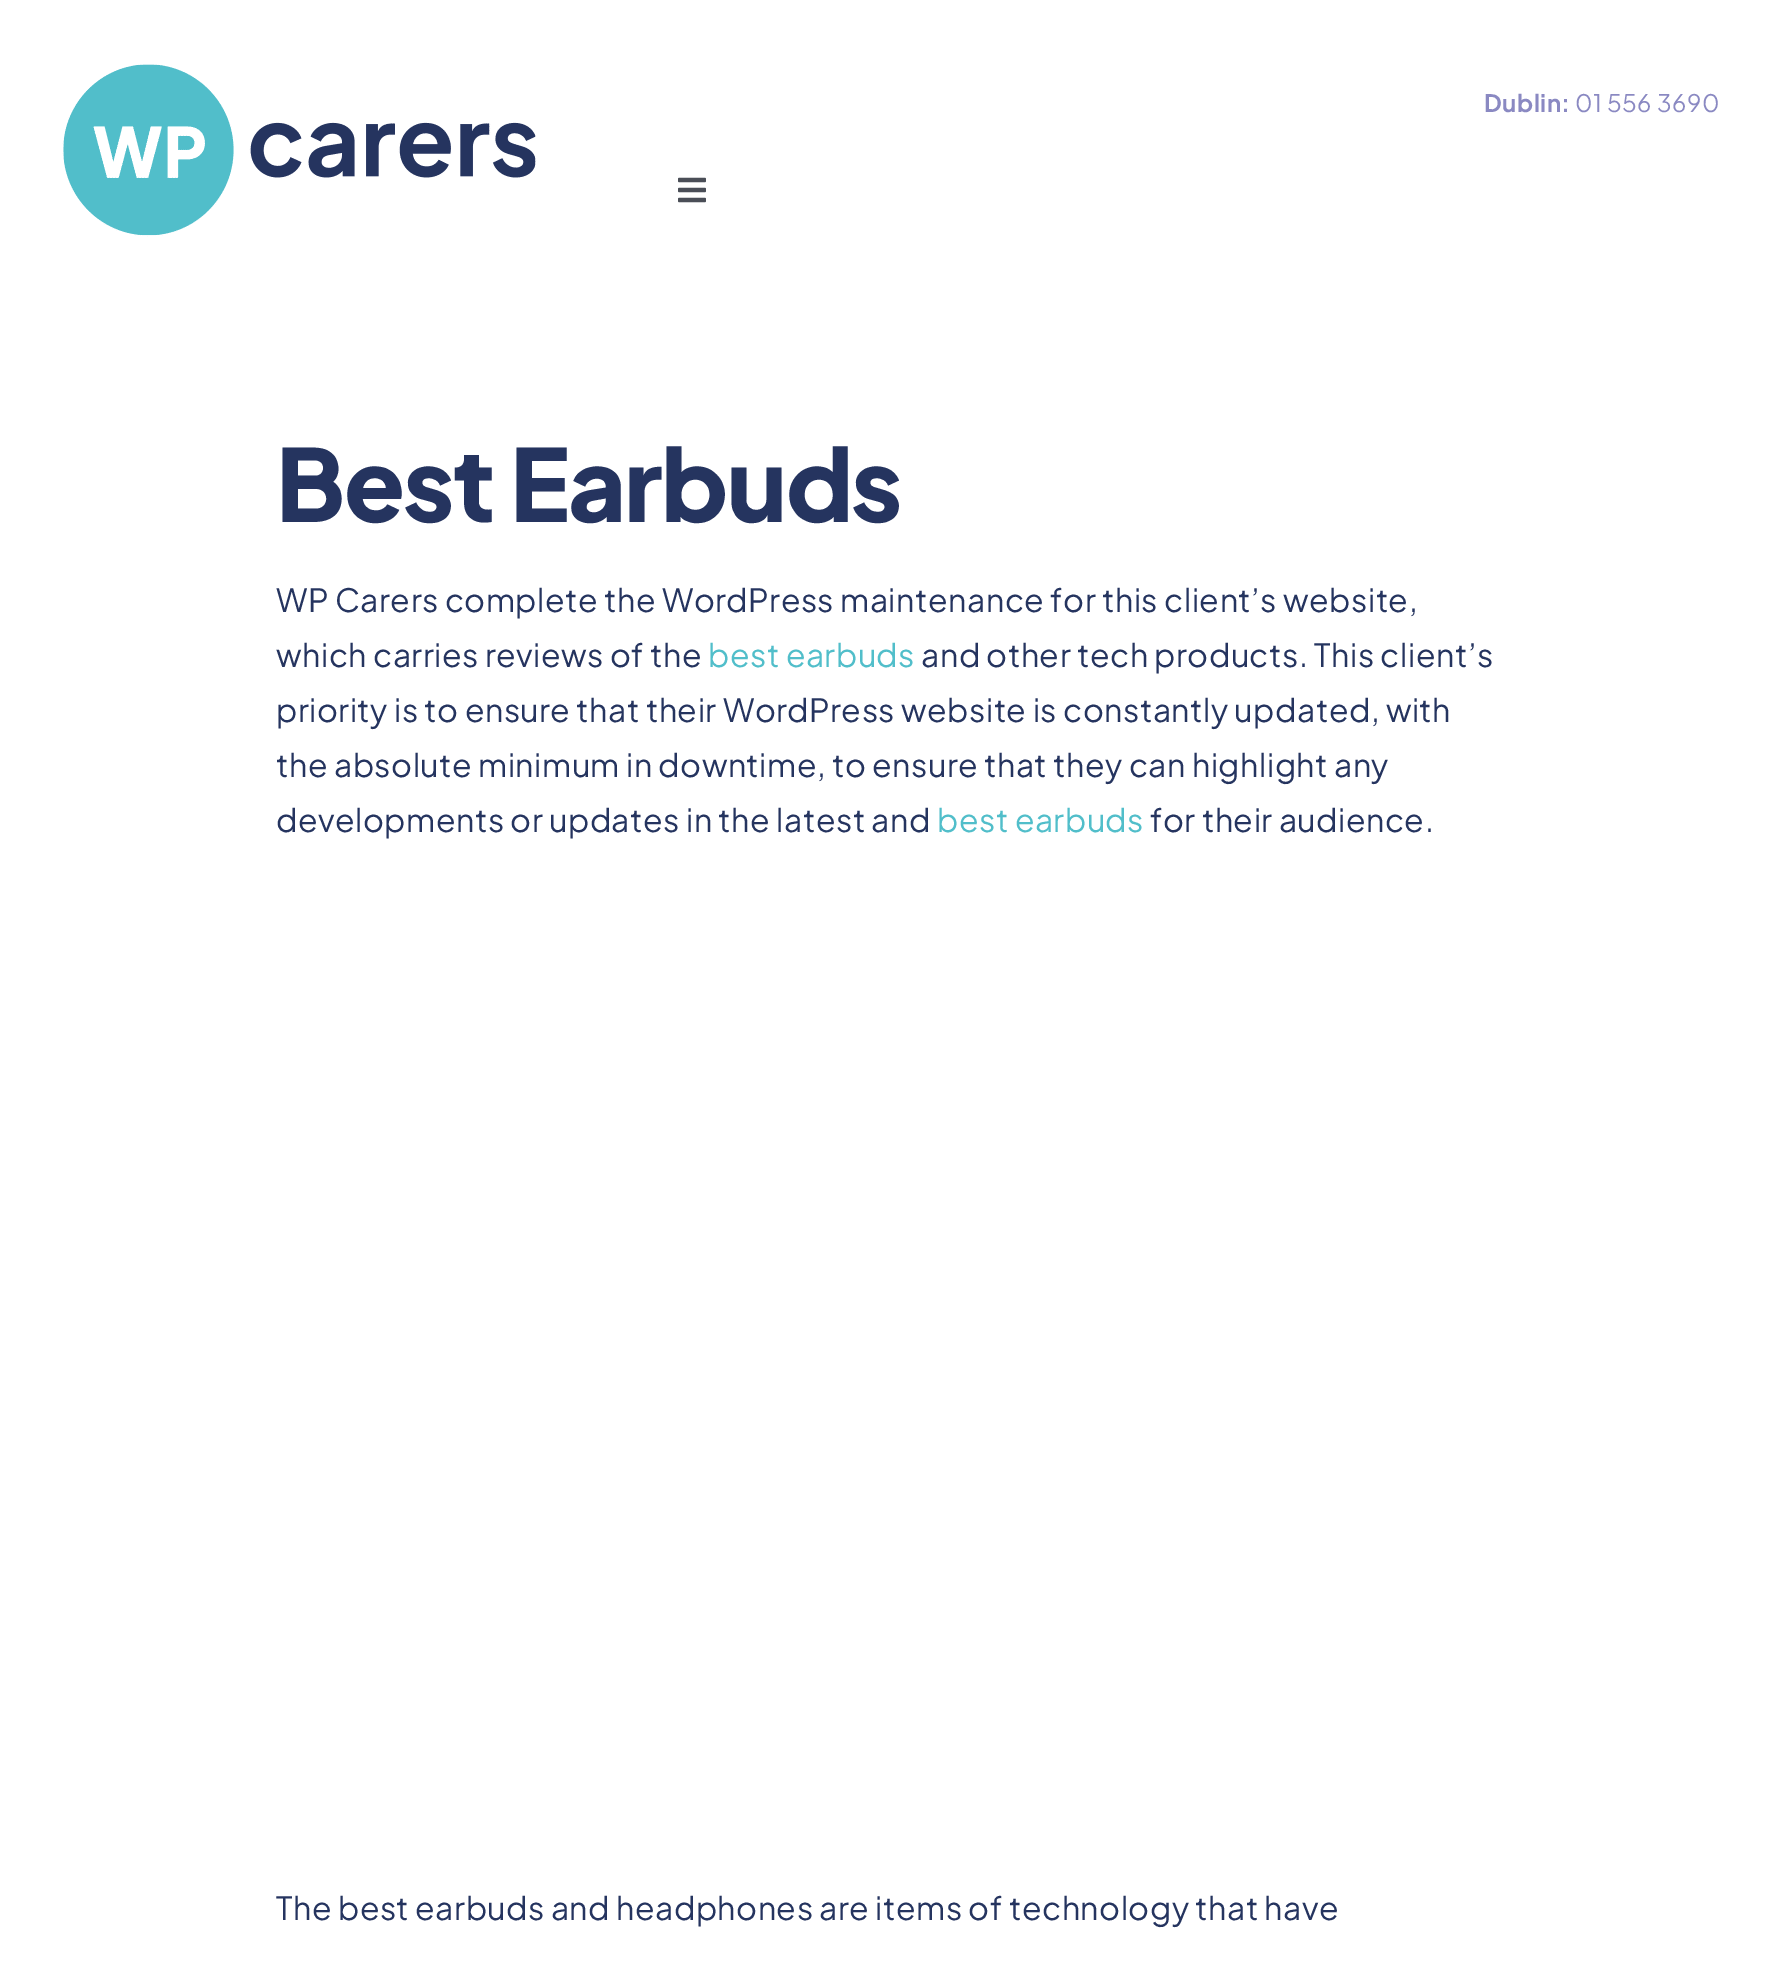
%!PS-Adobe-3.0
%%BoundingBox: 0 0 1779 1968
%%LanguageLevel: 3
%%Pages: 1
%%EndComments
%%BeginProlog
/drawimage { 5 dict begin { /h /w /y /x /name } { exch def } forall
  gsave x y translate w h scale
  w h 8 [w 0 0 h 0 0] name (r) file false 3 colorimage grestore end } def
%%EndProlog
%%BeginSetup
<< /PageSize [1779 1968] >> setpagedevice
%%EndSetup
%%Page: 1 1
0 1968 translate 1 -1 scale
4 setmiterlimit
1 setgray
0 0 1779 1968 rectfill
(images/1.raw) 62 64 475 173 drawimage
(images/2.raw) 678 177 28 26 drawimage
/PlusJakartaSans-Bold [24 0 0 -24 0 0] selectfont
0.541 0.537 0.761 setrgbcolor
1484 112 moveto 0.48 0 (Dublin:) ashow
/PlusJakartaSans-Regular [24 0 0 -24 0 0] selectfont
1575 112 moveto 0.48 0 (01 556 3690) ashow
/PlusJakartaSans-ExtraBold [100 0 0 -100 0 0] selectfont
0.145 0.204 0.373 setrgbcolor
276 522 moveto -1.5 0 (Best Earbuds) ashow
/PlusJakartaSans-Regular [32 0 0 -32 0 0] selectfont
276 612 moveto 0.48 0 (WP Carers complete the WordPress maintenance for this client’s website,) ashow
276 667 moveto 0.48 0 (which carries reviews of the) ashow
0.318 0.745 0.792 setrgbcolor
708 667 moveto 0.48 0 (best earbuds) ashow
0.145 0.204 0.373 setrgbcolor
921 667 moveto 0.48 0 (and other tech products. This client’s) ashow
276 722 moveto 0.48 0 (priority is to ensure that their WordPress website is constantly updated, with) ashow
276 777 moveto 0.48 0 (the absolute minimum in downtime, to ensure that they can highlight any) ashow
276 832 moveto 0.48 0 (developments or updates in the latest and) ashow
0.318 0.745 0.792 setrgbcolor
937 832 moveto 0.48 0 (best earbuds) ashow
0.145 0.204 0.373 setrgbcolor
1150 832 moveto 0.48 0 (for their audience.) ashow
276 1920 moveto 0.48 0 (The best earbuds and headphones are items of technology that have) ashow
showpage
%%EOF
